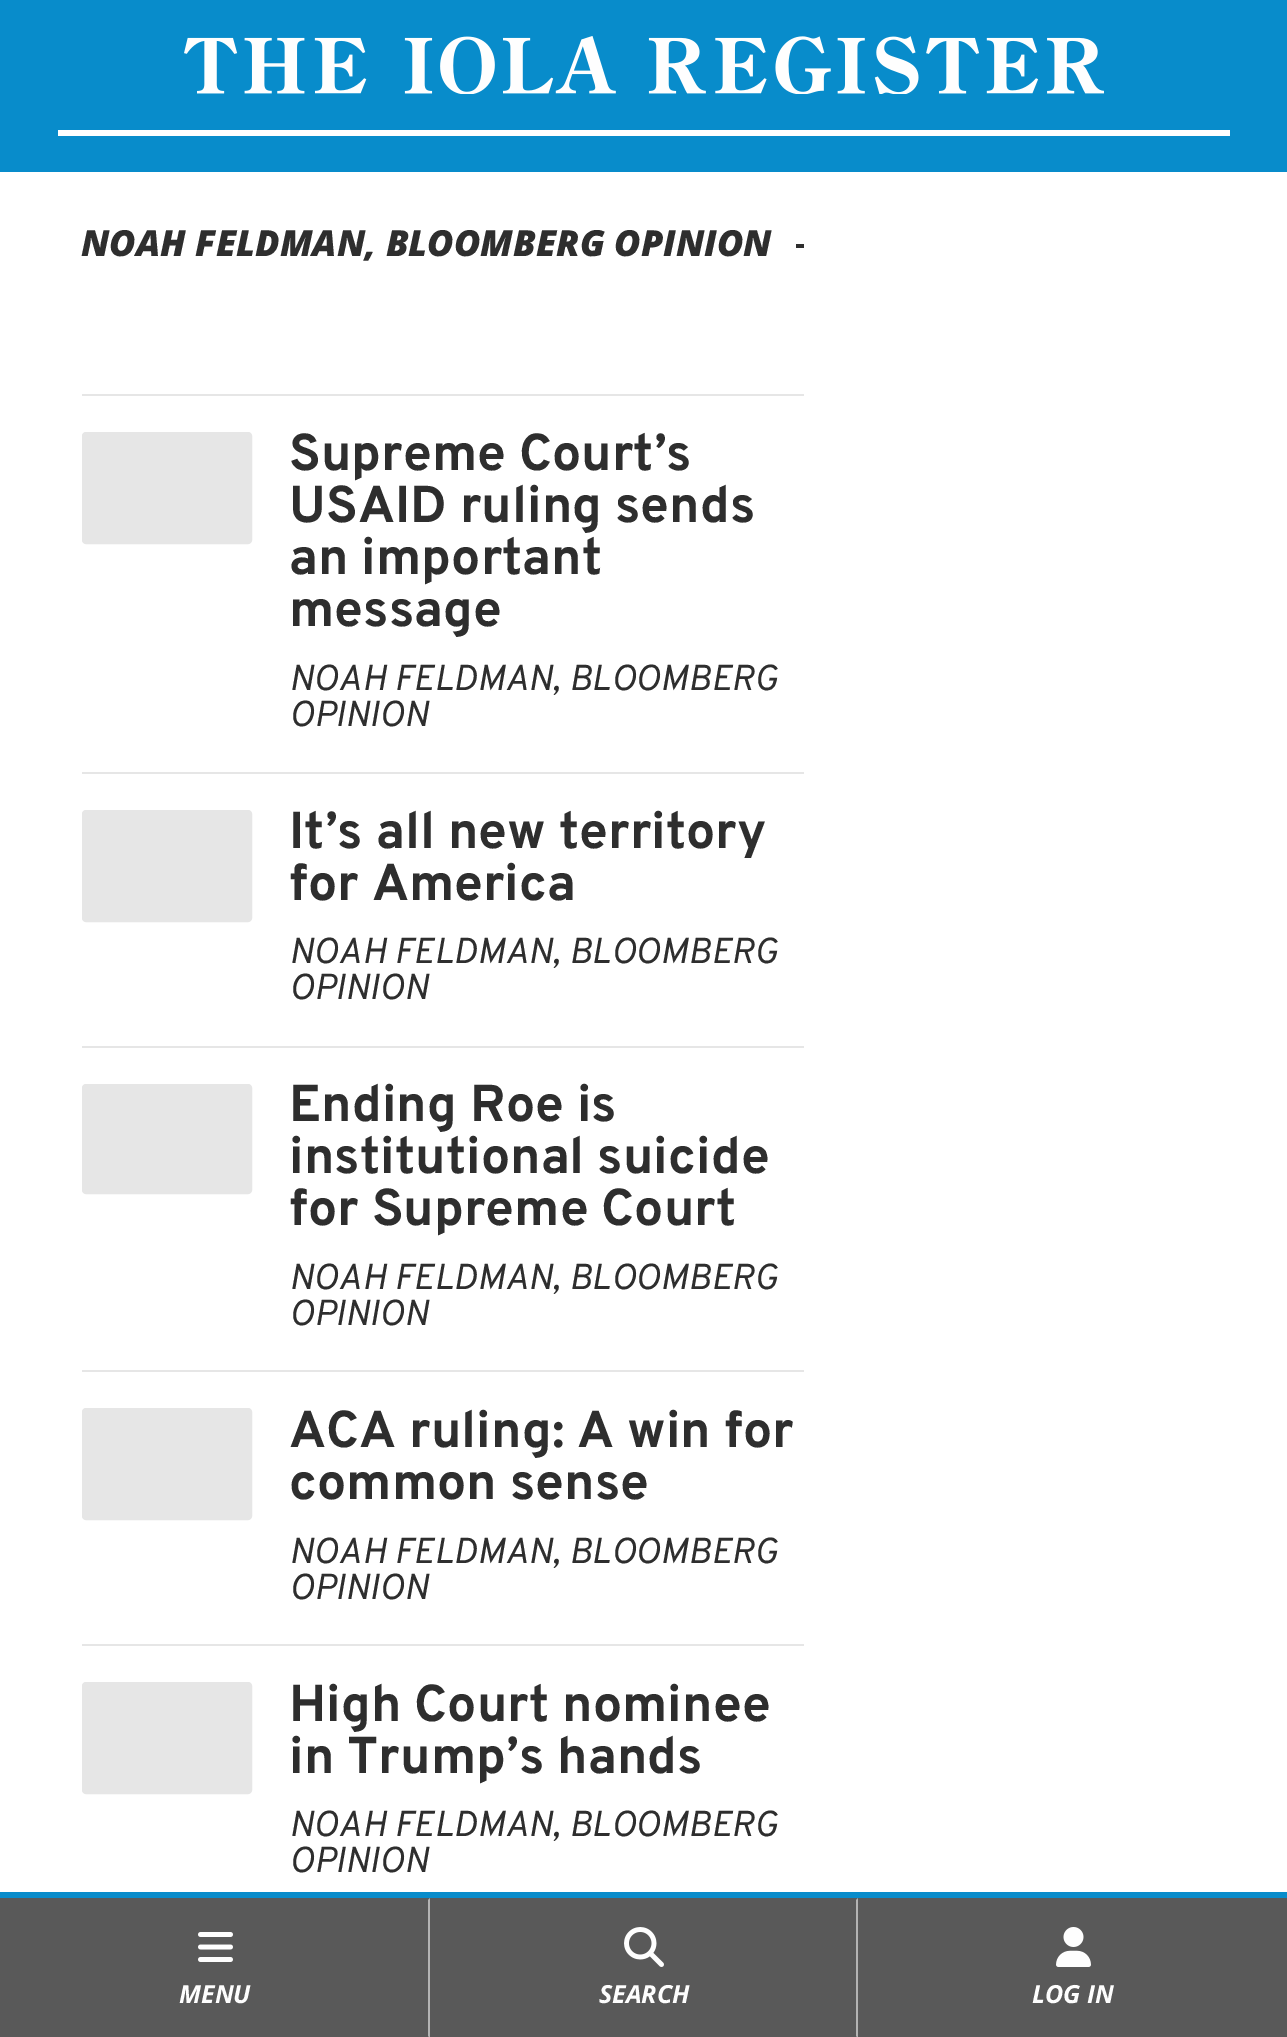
%!PS-Adobe-3.0
%%BoundingBox: 0 0 1287 2037
%%LanguageLevel: 3
%%Pages: 1
%%EndComments
%%BeginProlog
/rrect { 5 dict begin { /r /h /w /y /x } { exch def } forall
  x r add y moveto x w add y 2 copy h add r arct x w add y h add x 1 index r arct
  x y h add x y r arct x y 2 copy exch w add exch r arct closepath end } def
/drawimage { 5 dict begin { /h /w /y /x /name } { exch def } forall
  gsave x y translate w h scale
  w h 8 [w 0 0 h 0 0] name (r) file false 3 colorimage grestore end } def
%%EndProlog
%%BeginSetup
<< /PageSize [1287 2037] >> setpagedevice
%%EndSetup
%%Page: 1 1
0 2037 translate 1 -1 scale
4 setmiterlimit
1 setgray
0 0 1287 2037 rectfill
0.031 0.549 0.796 setrgbcolor
0 0 1287 172 rectfill
0.996 setgray
58 130 1172 6 rectfill
(images/1.raw) 184 36 920 58 drawimage
0.18 setgray
796 244 8 4 rectfill
0.902 setgray
82 394 722 2 rectfill
82 772 722 2 rectfill
83 433 168 110 3 rrect gsave fill grestore
2 setlinewidth
stroke
82 1046 722 2 rectfill
83 811 168 110 3 rrect gsave fill grestore
stroke
82 1370 722 2 rectfill
83 1085 168 108 3 rrect gsave fill grestore
stroke
82 1644 722 2 rectfill
83 1409 168 110 3 rrect gsave fill grestore
stroke
83 1683 168 110 3 rrect gsave fill grestore
stroke
0.031 0.549 0.796 setrgbcolor
0 1892 1287 6 rectfill
0.349 setgray
0 1898 1287 139 rectfill
0.702 setgray
newpath 430 1898 moveto 430 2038 lineto 428 2036 lineto 428 1900 lineto closepath fill
(images/2.raw) 198 1932 35 30 drawimage
newpath 858 1898 moveto 858 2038 lineto 856 2036 lineto 856 1900 lineto closepath fill
(images/3.raw) 624 1927 40 40 drawimage
(images/4.raw) 1056 1927 35 40 drawimage
/OpenSans-ExtraBoldItalic [36 0 0 -36 0 0] selectfont
0.18 setgray
81 256 moveto (NOAH FELDMAN, BLOOMBERG OPINION) show
/Overpass-Bold [51.75 0 0 -51.75 0 0] selectfont
289 470 moveto (Supreme Court’s) show
289 522 moveto (USAID ruling sends) show
289 574 moveto (an important) show
289 626 moveto (message) show
/Overpass-Italic [36 0 0 -36 0 0] selectfont
289 690 moveto (NOAH FELDMAN, BLOOMBERG) show
289 726 moveto (OPINION) show
/Overpass-Bold [51.75 0 0 -51.75 0 0] selectfont
289 848 moveto (It’s all new territory) show
289 900 moveto (for America) show
/Overpass-Italic [36 0 0 -36 0 0] selectfont
289 963 moveto (NOAH FELDMAN, BLOOMBERG) show
289 999 moveto (OPINION) show
/Overpass-Bold [51.75 0 0 -51.75 0 0] selectfont
289 1121 moveto (Ending Roe is) show
289 1173 moveto (institutional suicide) show
289 1225 moveto (for Supreme Court) show
/Overpass-Italic [36 0 0 -36 0 0] selectfont
289 1289 moveto (NOAH FELDMAN, BLOOMBERG) show
289 1325 moveto (OPINION) show
/Overpass-Bold [51.75 0 0 -51.75 0 0] selectfont
289 1447 moveto (ACA ruling: A win for) show
289 1499 moveto (common sense) show
/Overpass-Italic [36 0 0 -36 0 0] selectfont
289 1563 moveto (NOAH FELDMAN, BLOOMBERG) show
289 1599 moveto (OPINION) show
/Overpass-Bold [51.75 0 0 -51.75 0 0] selectfont
289 1721 moveto (High Court nominee) show
289 1773 moveto (in Trump’s hands) show
/Overpass-Italic [36 0 0 -36 0 0] selectfont
289 1836 moveto (NOAH FELDMAN, BLOOMBERG) show
289 1872 moveto (OPINION) show
/OpenSans-BoldItalic [25 0 0 -25 0 0] selectfont
0.996 setgray
179 2003 moveto (MENU) show
599 2003 moveto (SEARCH) show
1032 2003 moveto (LOG IN) show
showpage
%%EOF
